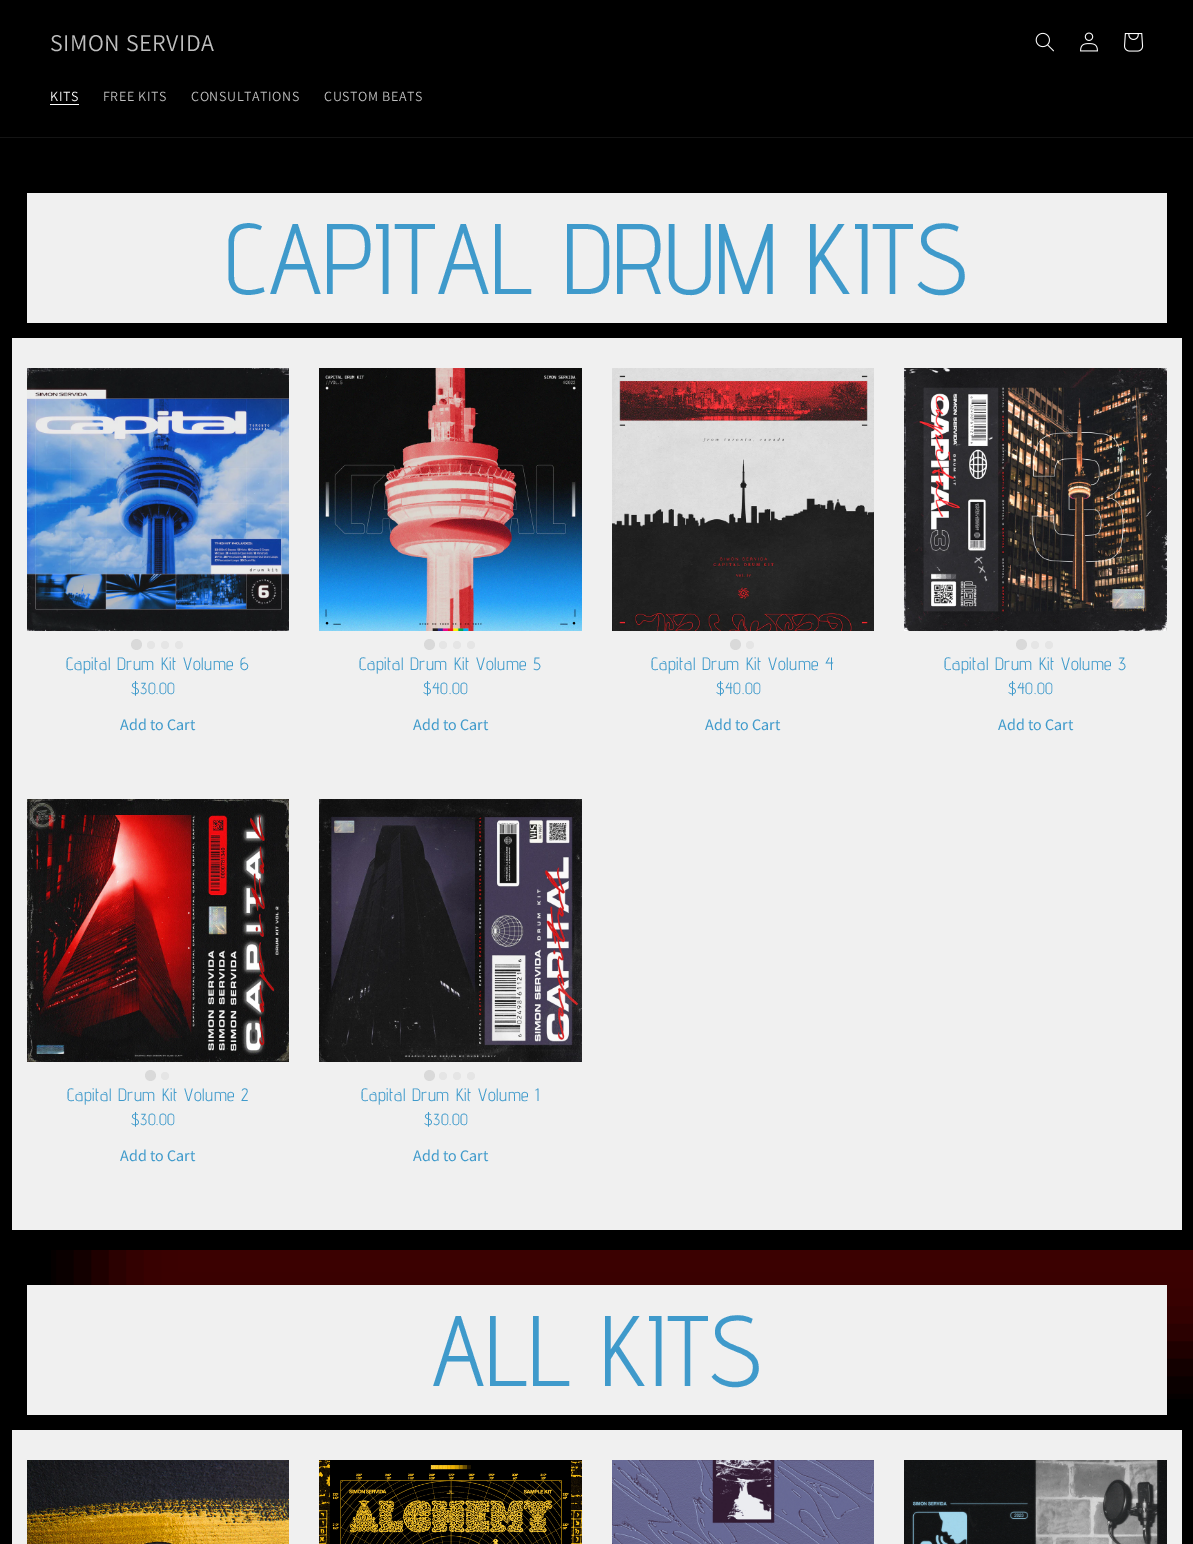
%!PS-Adobe-3.0
%%BoundingBox: 0 0 1193 1544
%%LanguageLevel: 3
%%Pages: 1
%%EndComments
%%BeginProlog
/setalpha { dup .setfillconstantalpha .setstrokeconstantalpha } def
/rrect { 5 dict begin { /r /h /w /y /x } { exch def } forall
  x r add y moveto x w add y 2 copy h add r arct x w add y h add x 1 index r arct
  x y h add x y r arct x y 2 copy exch w add exch r arct closepath end } def
/softshadow { 12 dict begin { /a /b /q /h /w /y /x } { exch def } forall gsave /was 0 def
  9 -2 -9 { dup b mul 4 div /e exch def 1 sub .425 mul 2.718 exch exp 1 add a .99 .min exch div /now exch def
    1 1 now sub 1 was sub div sub setalpha /was now def
    w h .min e 2 mul add 0 gt { x e sub y e sub w e 2 mul add h e 2 mul add
      q e add b .6 mul add w h .min 2 div e add .min 0 .max rrect fill } if } for grestore end } def
/drawimage { 5 dict begin { /h /w /y /x /name } { exch def } forall
  gsave x y translate w h scale
  w h 8 [w 0 0 h 0 0] name (r) file false 3 colorimage grestore end } def
%%EndProlog
%%BeginSetup
<< /PageSize [1193 1544] /PageUsesTransparency true >> setpagedevice
%%EndSetup
%%Page: 1 1
0 .pushpdf14devicefilter
0 1544 translate 1 -1 scale
4 setmiterlimit
0 setgray
0 0 1193 1544 rectfill
0.078 setgray
0 137 1193 1 rectfill
(images/1.raw) 1035 32 19 20 drawimage
(images/2.raw) 1080 32 18 20 drawimage
(images/3.raw) 1124 33 20 19 drawimage
1 setgray
50 104 29 1 rectfill
gsave
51 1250 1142 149 rectclip
0.922 0.035 0.035 setrgbcolor
100 258 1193 1092 0 35 0.25 softshadow
grestore
0.941 setgray
27 193 1140 130 rectfill
12 338 1170 892 rectfill
(images/4.raw) 27 368 262 263 drawimage
0.851 setgray
newpath 136.5 644.5 5.5 0 360 arc closepath fill
0.898 setgray
newpath 151 645 4 0 360 arc closepath fill
newpath 165 645 4 0 360 arc closepath fill
newpath 179 645 4 0 360 arc closepath fill
(images/5.raw) 319 368 263 263 drawimage
0.851 setgray
newpath 429.5 644.5 5.5 0 360 arc closepath fill
0.898 setgray
newpath 443 645 4 0 360 arc closepath fill
newpath 457 645 4 0 360 arc closepath fill
newpath 471 645 4 0 360 arc closepath fill
(images/6.raw) 612 368 262 263 drawimage
0.851 setgray
newpath 735.5 644.5 5.5 0 360 arc closepath fill
0.898 setgray
newpath 750 645 4 0 360 arc closepath fill
(images/7.raw) 904 368 263 263 drawimage
0.851 setgray
newpath 1021.5 644.5 5.5 0 360 arc closepath fill
0.898 setgray
newpath 1035 645 4 0 360 arc closepath fill
newpath 1049 645 4 0 360 arc closepath fill
(images/8.raw) 27 799 262 263 drawimage
0.851 setgray
newpath 150.5 1075.5 5.5 0 360 arc closepath fill
0.898 setgray
newpath 165 1076 4 0 360 arc closepath fill
(images/9.raw) 319 799 263 263 drawimage
0.851 setgray
newpath 429.5 1075.5 5.5 0 360 arc closepath fill
0.898 setgray
newpath 443 1076 4 0 360 arc closepath fill
newpath 457 1076 4 0 360 arc closepath fill
newpath 471 1076 4 0 360 arc closepath fill
0.941 setgray
27 1285 1140 130 rectfill
12 1430 1170 114 rectfill
(images/10.raw) 27 1460 262 84 drawimage
(images/11.raw) 319 1460 263 84 drawimage
(images/12.raw) 612 1460 262 84 drawimage
(images/13.raw) 904 1460 263 84 drawimage
/Assistant-Regular [24 0 0 -24 0 0] selectfont
0.749 setgray
50 51 moveto 0.6 0 (SIMON SERVIDA) ashow
/Assistant-Regular [14 0 0 -14 0 0] selectfont
1 setgray
50 101 moveto 0.6 0 (KITS) ashow
0.749 setgray
103 101 moveto 0.6 0 (FREE KITS) ashow
191 101 moveto 0.6 0 (CONSULTATIONS) ashow
324 101 moveto 0.6 0 (CUSTOM BEATS) ashow
/AdventPro-Regular [100 0 0 -100 0 0] selectfont
0.247 0.604 0.796 setrgbcolor
225 294 moveto 0.6 0 (CAPITAL DRUM KITS) ashow
/AdventPro-Regular [18 0 0 -18 0 0] selectfont
66 670 moveto 0.6 0 (Capital Drum Kit Volume 6) ashow
/AdventPro-Regular [16 0 0 -16 0 0] selectfont
131 694 moveto 0.6 0 ($30.00) ashow
/SourceSansPro-Regular [16 0 0 -16 0 0] selectfont
120 730 moveto (Add to Cart) show
/AdventPro-Regular [18 0 0 -18 0 0] selectfont
359 670 moveto 0.6 0 (Capital Drum Kit Volume 5) ashow
/AdventPro-Regular [16 0 0 -16 0 0] selectfont
423 694 moveto 0.6 0 ($40.00) ashow
/SourceSansPro-Regular [16 0 0 -16 0 0] selectfont
413 730 moveto (Add to Cart) show
/AdventPro-Regular [18 0 0 -18 0 0] selectfont
651 670 moveto 0.6 0 (Capital Drum Kit Volume 4) ashow
/AdventPro-Regular [16 0 0 -16 0 0] selectfont
716 694 moveto 0.6 0 ($40.00) ashow
/SourceSansPro-Regular [16 0 0 -16 0 0] selectfont
705 730 moveto (Add to Cart) show
/AdventPro-Regular [18 0 0 -18 0 0] selectfont
944 670 moveto 0.6 0 (Capital Drum Kit Volume 3) ashow
/AdventPro-Regular [16 0 0 -16 0 0] selectfont
1008 694 moveto 0.6 0 ($40.00) ashow
/SourceSansPro-Regular [16 0 0 -16 0 0] selectfont
998 730 moveto (Add to Cart) show
/AdventPro-Regular [18 0 0 -18 0 0] selectfont
67 1101 moveto 0.6 0 (Capital Drum Kit Volume 2) ashow
/AdventPro-Regular [16 0 0 -16 0 0] selectfont
131 1125 moveto 0.6 0 ($30.00) ashow
/SourceSansPro-Regular [16 0 0 -16 0 0] selectfont
120 1161 moveto (Add to Cart) show
/AdventPro-Regular [18 0 0 -18 0 0] selectfont
361 1101 moveto 0.6 0 (Capital Drum Kit Volume 1) ashow
/AdventPro-Regular [16 0 0 -16 0 0] selectfont
424 1125 moveto 0.6 0 ($30.00) ashow
/SourceSansPro-Regular [16 0 0 -16 0 0] selectfont
413 1161 moveto (Add to Cart) show
/AdventPro-Regular [100 0 0 -100 0 0] selectfont
431 1386 moveto 0.6 0 (ALL KITS) ashow
.poppdf14devicefilter showpage
%%EOF
